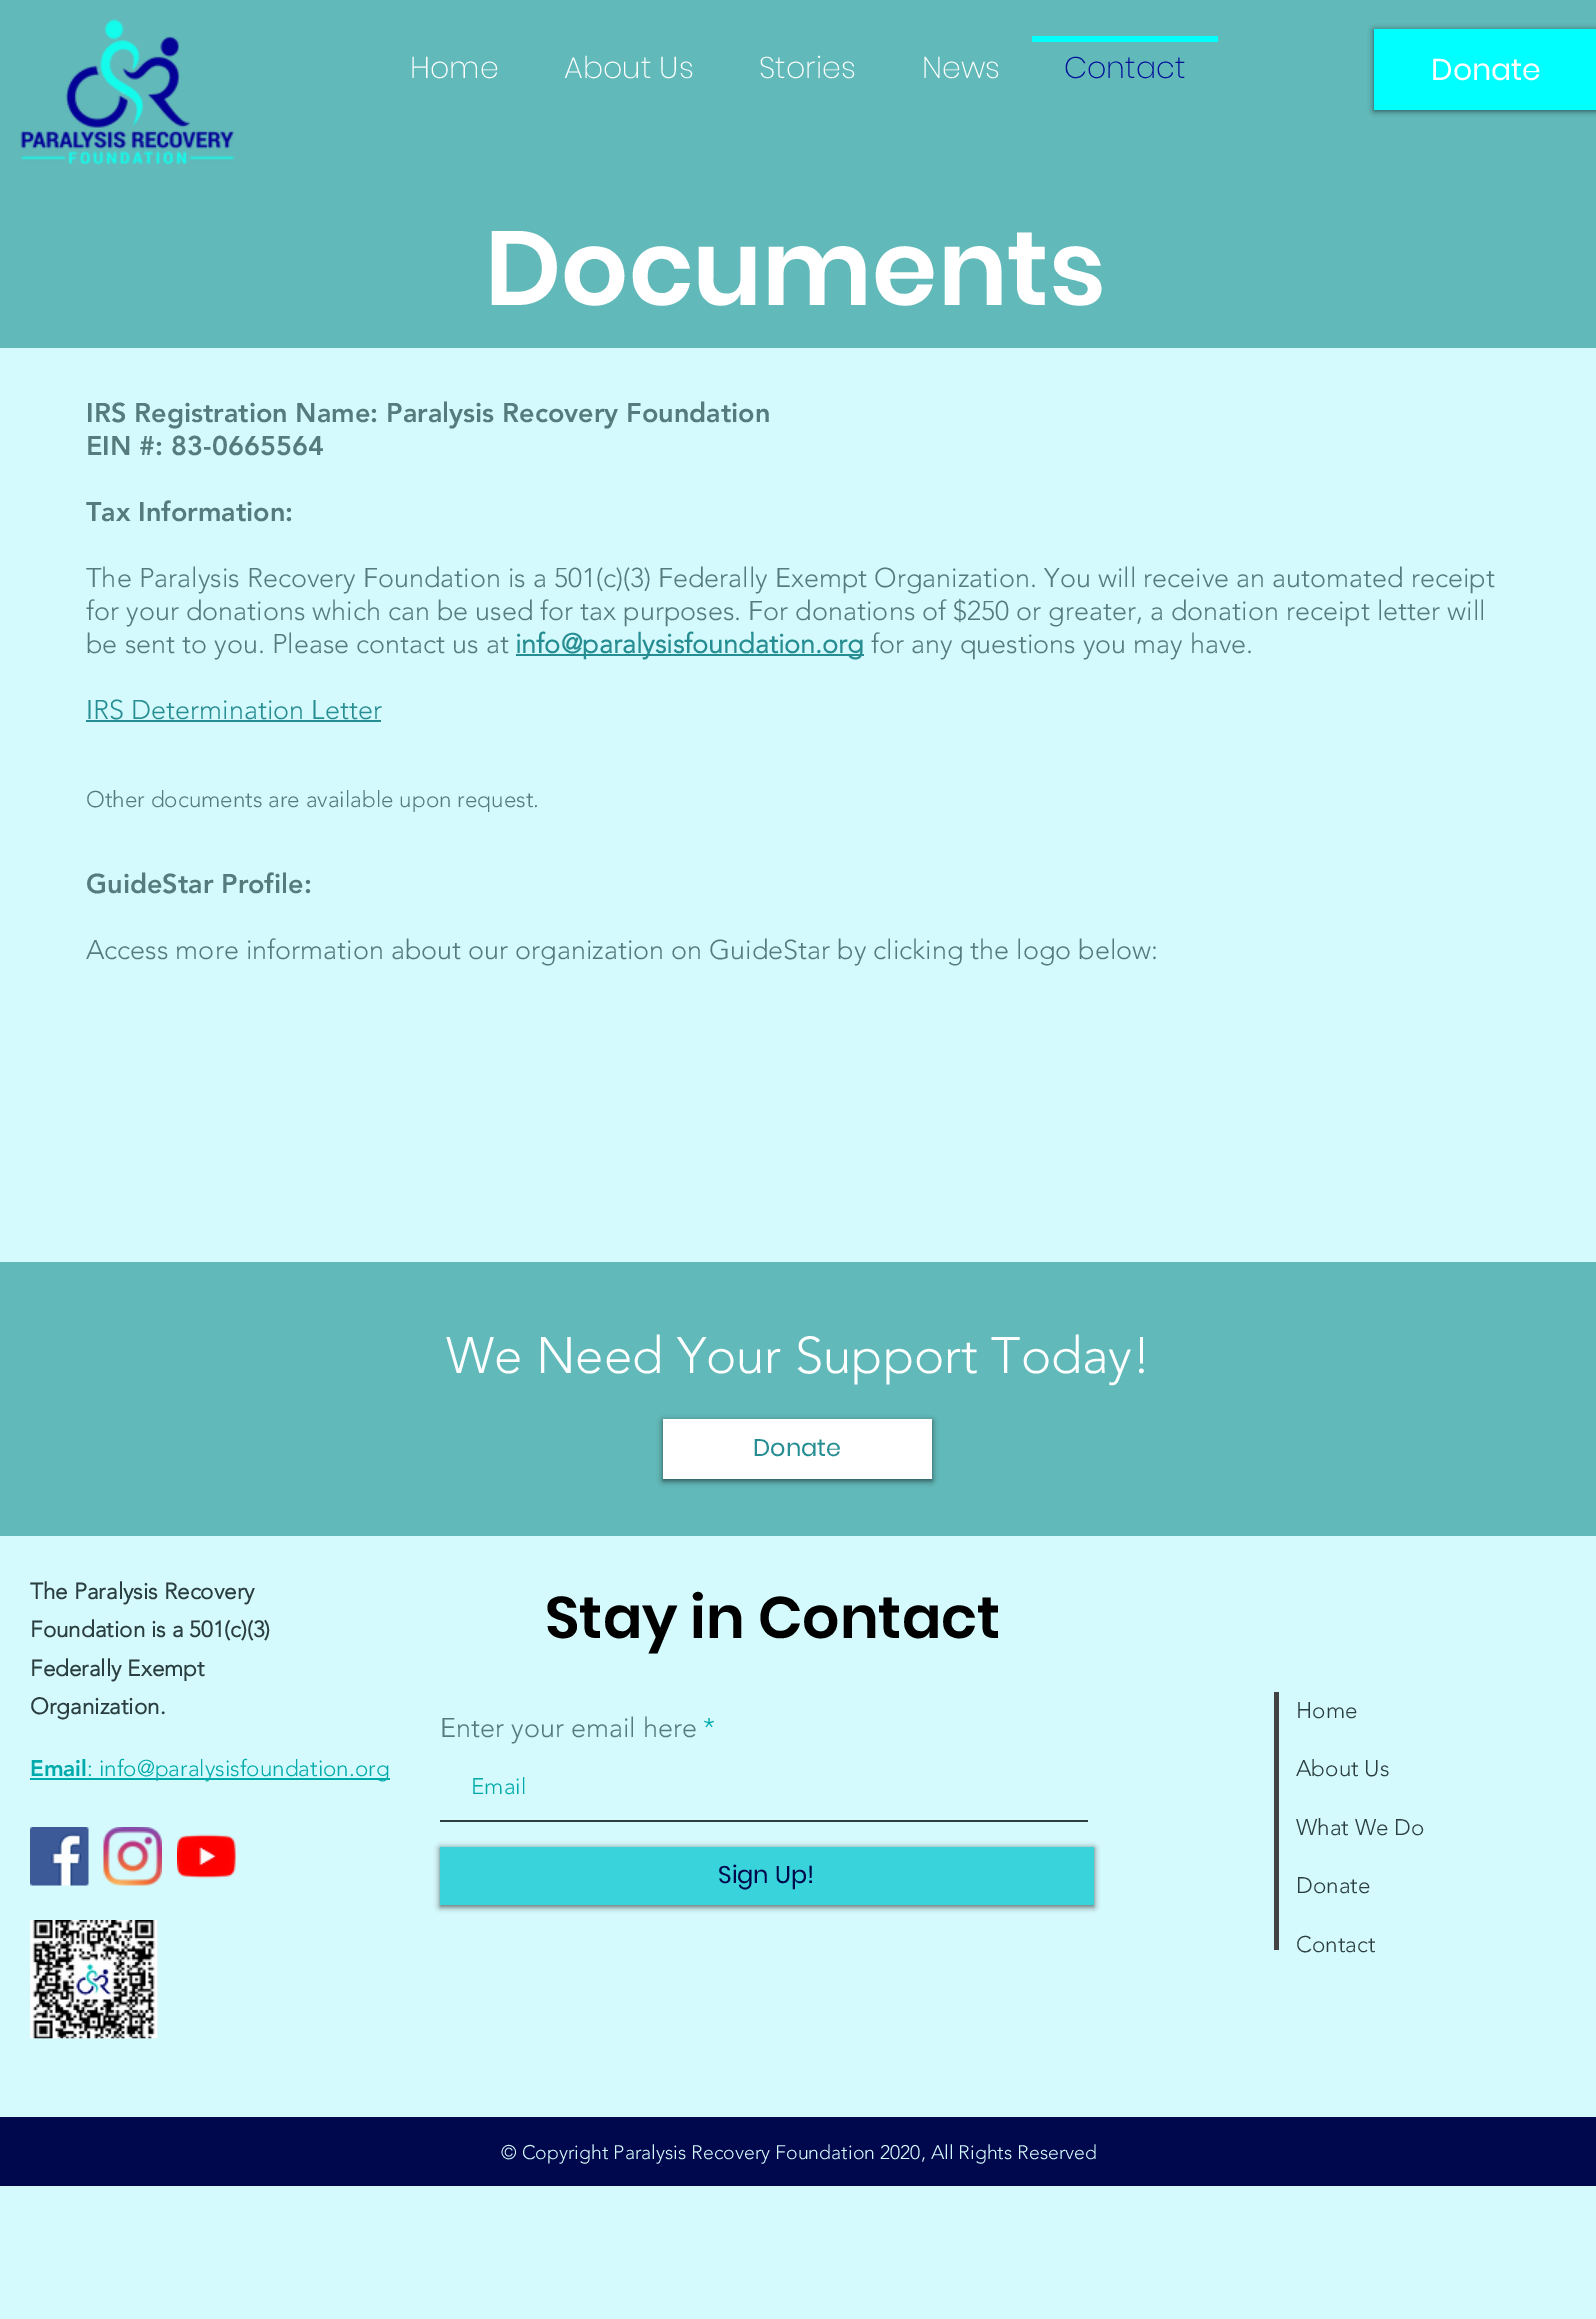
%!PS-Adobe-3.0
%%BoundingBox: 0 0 1596 2319
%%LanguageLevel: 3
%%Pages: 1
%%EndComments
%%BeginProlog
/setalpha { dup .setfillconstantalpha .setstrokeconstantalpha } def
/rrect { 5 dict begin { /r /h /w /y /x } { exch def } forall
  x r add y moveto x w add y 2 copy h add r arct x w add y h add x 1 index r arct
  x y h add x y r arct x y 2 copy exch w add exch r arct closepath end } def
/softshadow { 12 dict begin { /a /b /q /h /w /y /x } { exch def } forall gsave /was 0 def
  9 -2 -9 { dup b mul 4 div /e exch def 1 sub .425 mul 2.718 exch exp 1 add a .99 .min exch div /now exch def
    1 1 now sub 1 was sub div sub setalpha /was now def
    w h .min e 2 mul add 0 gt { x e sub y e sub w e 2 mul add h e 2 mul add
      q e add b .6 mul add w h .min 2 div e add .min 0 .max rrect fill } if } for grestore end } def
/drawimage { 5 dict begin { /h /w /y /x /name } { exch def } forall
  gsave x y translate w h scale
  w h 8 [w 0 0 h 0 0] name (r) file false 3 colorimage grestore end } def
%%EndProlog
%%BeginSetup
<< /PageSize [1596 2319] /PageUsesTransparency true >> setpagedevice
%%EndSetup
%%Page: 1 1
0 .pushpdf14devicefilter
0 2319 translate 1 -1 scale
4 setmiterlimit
0.384 0.725 0.725 setrgbcolor
0 0 1596 2319 rectfill
(images/1.raw) 20 19 215 146 drawimage
0 1 1 setrgbcolor
1032 36 186 6 rectfill
0 setgray
1374 30 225 81 0 3 0.6 softshadow
0 1 1 setrgbcolor
1374 29 222 81 rectfill
0.835 0.98 0.992 setrgbcolor
0 348 1596 914 rectfill
0.149 0.553 0.573 setrgbcolor
516 654 348 2 rectfill
86 720 295 2 rectfill
0 setgray
663 1421 269 60 0 3 0.6 softshadow
1 setgray
663 1419 269 60 rectfill
0.835 0.98 0.992 setrgbcolor
0 1536 1596 783 rectfill
0 0.667 0.667 setrgbcolor
30 1778 360 2 rectfill
(images/2.raw) 30 1827 59 59 drawimage
(images/3.raw) 103 1827 59 59 drawimage
(images/4.raw) 177 1834 59 45 drawimage
(images/5.raw) 30 1920 128 119 drawimage
0.169 0.243 0.247 setrgbcolor
440 1820 648 2 rectfill
0 setgray
440 1848 654 59 0 3 0.6 softshadow
0.224 0.827 0.859 setrgbcolor
440 1847 654 58 rectfill
0.259 setgray
1274 1692 5 258 rectfill
0 0.031 0.302 setrgbcolor
0 2117 1596 69 rectfill
/Poppins-ExtraLight [30 0 0 -30 0 0] selectfont
1 setgray
410 78 moveto (Home) show
564 78 moveto (About Us) show
759 78 moveto (Stories) show
922 78 moveto (News) show
0 0.059 0.6 setrgbcolor
1064 78 moveto (Contact) show
/Poppins-Regular [30 0 0 -30 0 0] selectfont
1 setgray
1431 80 moveto (Donate) show
/Poppins-SemiBold [105 0 0 -105 0 0] selectfont
485 305 moveto (Documents) show
/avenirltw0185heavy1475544-Black [27 0 0 -27 0 0] selectfont
0.337 0.482 0.49 setrgbcolor
86 422 moveto (IRS Registration Name: Paralysis Recovery Foundation) show
86 455 moveto (EIN #: 83-0665564) show
86 521 moveto (Tax Information:) show
/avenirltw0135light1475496-Light [27 0 0 -27 0 0] selectfont
86 587 moveto (The Paralysis Recovery Foundation is a 501\(c\)\(3\) Federally Exempt Organization. You will receive an automated receipt) show
86 620 moveto (for your donations which can be used for tax purposes. For donations of $250 or greater, a donation receipt letter will) show
86 653 moveto (be sent to you. Please contact us at) show
/avenirltw0135light1475496-Bold [27 0 0 -27 0 0] selectfont
0.149 0.553 0.573 setrgbcolor
515 653 moveto (info@paralysisfoundation.org) show
/avenirltw0135light1475496-Light [27 0 0 -27 0 0] selectfont
0.337 0.482 0.49 setrgbcolor
871 653 moveto (for any questions you may have.) show
0.149 0.553 0.573 setrgbcolor
86 719 moveto (IRS Determination Letter) show
/avenirltw0135light1475496-Light [22.5 0 0 -22.5 0 0] selectfont
0.337 0.482 0.49 setrgbcolor
86 807 moveto (Other documents are available upon request.) show
/avenirltw0185heavy1475544-Black [27 0 0 -27 0 0] selectfont
86 893 moveto (GuideStar Profile:) show
/avenirltw0135light1475496-Light [27 0 0 -27 0 0] selectfont
86 959 moveto (Access more information about our organization on GuideStar by clicking the logo below:) show
/avenirltw0135light1475496-Light [51 0 0 -51 0 0] selectfont
1 setgray
446 1373 moveto (We Need Your Support Today!) show
/Poppins-Regular [24 0 0 -24 0 0] selectfont
0.149 0.553 0.573 setrgbcolor
753 1456 moveto (Donate) show
/avenirltw0135light1475496-Bold [22.5 0 0 -22.5 0 0] selectfont
0.169 0.243 0.247 setrgbcolor
30 1599 moveto (The Paralysis Recovery) show
30 1637 moveto (Foundation is a 501\(c\)\(3\)) show
30 1676 moveto (Federally Exempt) show
30 1714 moveto (Organization.) show
/avenirltw0185heavy1475544-Black [22.5 0 0 -22.5 0 0] selectfont
0 0.667 0.667 setrgbcolor
30 1776 moveto (Email) show
/avenirltw0135light1475496-Light [22.5 0 0 -22.5 0 0] selectfont
87 1776 moveto (: info@paralysisfoundation.org) show
/Poppins-SemiBold [58.5 0 0 -58.5 0 0] selectfont
0 setgray
545 1638 moveto (Stay in Contact) show
/avenirltw0135light1475496-Light [27 0 0 -27 0 0] selectfont
0.337 0.482 0.49 setrgbcolor
440 1737 moveto (Enter your email here) show
0 0.667 0.667 setrgbcolor
703 1737 moveto (*) show
/avenirltw0135light1475496-Light [22.5 0 0 -22.5 0 0] selectfont
471 1794 moveto (Email) show
/Poppins-Regular [24 0 0 -24 0 0] selectfont
0 0.031 0.302 setrgbcolor
718 1883 moveto (Sign Up!) show
/avenirltw0135light1475496-Light [22.5 0 0 -22.5 0 0] selectfont
0.169 0.243 0.247 setrgbcolor
1296 1718 moveto (Home) show
1296 1776 moveto (About Us) show
1296 1835 moveto (What We Do) show
1296 1893 moveto (Donate) show
1296 1952 moveto (Contact) show
/avenirltw0135light1475496-Light [19.5 0 0 -19.5 0 0] selectfont
0.835 0.98 0.992 setrgbcolor
501 2159 moveto (© Copyright Paralysis Recovery Foundation 2020, All Rights Reserved) show
.poppdf14devicefilter showpage
%%EOF
